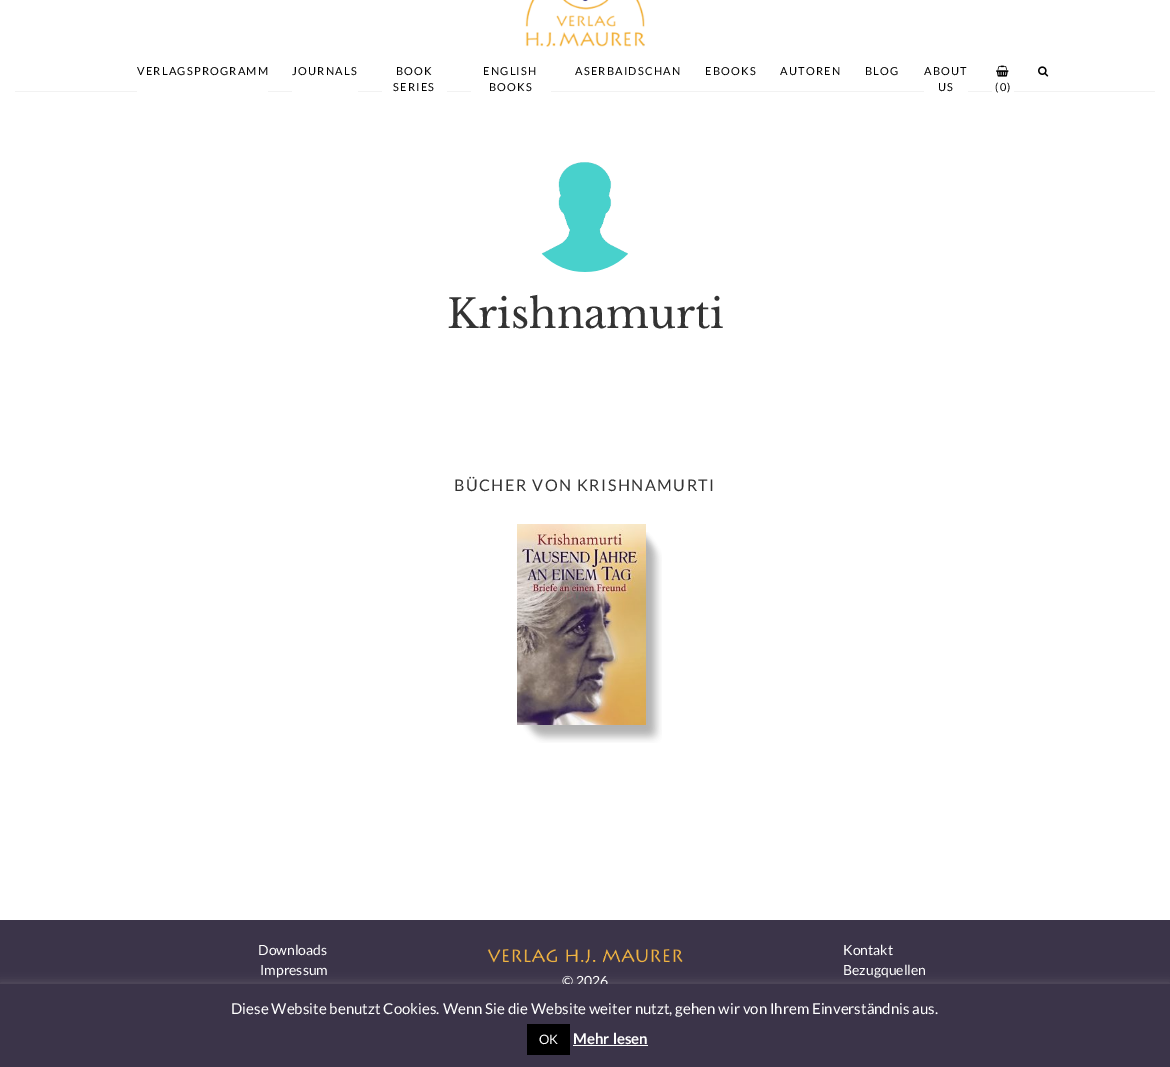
%!PS-Adobe-3.0
%%BoundingBox: 0 0 1170 1067
%%LanguageLevel: 3
%%Pages: 1
%%EndComments
%%BeginProlog
/setalpha { dup .setfillconstantalpha .setstrokeconstantalpha } def
/rrect { 5 dict begin { /r /h /w /y /x } { exch def } forall
  x r add y moveto x w add y 2 copy h add r arct x w add y h add x 1 index r arct
  x y h add x y r arct x y 2 copy exch w add exch r arct closepath end } def
/softshadow { 12 dict begin { /a /b /q /h /w /y /x } { exch def } forall gsave /was 0 def
  9 -2 -9 { dup b mul 4 div /e exch def 1 sub .425 mul 2.718 exch exp 1 add a .99 .min exch div /now exch def
    1 1 now sub 1 was sub div sub setalpha /was now def
    w h .min e 2 mul add 0 gt { x e sub y e sub w e 2 mul add h e 2 mul add
      q e add b .6 mul add w h .min 2 div e add .min 0 .max rrect fill } if } for grestore end } def
/drawimage { 5 dict begin { /h /w /y /x /name } { exch def } forall
  gsave x y translate w h scale
  w h 8 [w 0 0 h 0 0] name (r) file false 3 colorimage grestore end } def
%%EndProlog
%%BeginSetup
<< /PageSize [1170 1067] /PageUsesTransparency true >> setpagedevice
%%EndSetup
%%Page: 1 1
0 .pushpdf14devicefilter
0 1067 translate 1 -1 scale
4 setmiterlimit
1 setgray
0 0 1170 1067 rectfill
0.949 setgray
15 91 1140 1 rectfill
(images/1.raw) 525 0 120 47 drawimage
1 setgray
137 91 131 1 rectfill
292 91 66 1 rectfill
382 91 65 1 rectfill
471 91 80 1 rectfill
924 91 44 1 rectfill
992 91 22 1 rectfill
(images/2.raw) 996 65 13 12 drawimage
(images/3.raw) 1038 66 11 11 drawimage
(images/4.raw) 541 162 87 110 drawimage
(images/6.raw) 523 532 139 211 drawimage
(images/5.raw) 517 524 129 201 drawimage
0.231 0.204 0.286 setrgbcolor
0 920 1170 64 rectfill
(images/7.raw) 487 948 196 16 drawimage
0.675 0.671 0.671 setrgbcolor
0 983 1170 83 0 5 0.3 softshadow
/Lato-Regular [11 0 0 -11 0 0] selectfont
0 setgray
137 75 moveto 1.25 0 (VERLAGSPROGRAMM) ashow
292 75 moveto 1.25 0 (JOURNALS) ashow
396 75 moveto 1.25 0 (BOOK) ashow
393 91 moveto 1.25 0 (SERIES) ashow
483 75 moveto 1.25 0 (ENGLISH) ashow
489 91 moveto 1.25 0 (BOOKS) ashow
575 75 moveto 1.25 0 (ASERBAIDSCHAN) ashow
705 75 moveto 1.25 0 (EBOOKS) ashow
780 75 moveto 1.25 0 (AUTOREN) ashow
865 75 moveto 1.25 0 (BLOG) ashow
924 75 moveto 1.25 0 (ABOUT) ashow
938 91 moveto 1.25 0 (US) ashow
995 91 moveto 1.25 0 (\(0\)) ashow
/LibreBaskerville-Regular [40 0 0 -40 0 0] selectfont
0.2 setgray
447 328 moveto (Krishnamurti) show
/Lato-Regular [16 0 0 -16 0 0] selectfont
454 491 moveto 1.5 0 (BÜCHER VON KRISHNAMURTI) ashow
/Lato-Regular [14 0 0 -14 0 0] selectfont
1 setgray
258 955 moveto (Downloads) show
260 975 moveto (Impressum) show
843 955 moveto (Kontakt) show
843 975 moveto (Bezugquellen) show
562 986 moveto (© 2026) show
0.231 0.204 0.286 setrgbcolor
0 984 1170 83 rectfill
/Lato-Regular [15 0 0 -15 0 0] selectfont
1 setgray
231 1014 moveto (Diese Website benutzt Cookies. Wenn Sie die Website weiter nutzt, gehen wir von Ihrem Einverständnis aus.) show
0 setgray
527 1024 43 31 rectfill
/Lato-Regular [13 0 0 -13 0 0] selectfont
1 setgray
539 1044 moveto (OK) show
/Lato-Bold [15 0 0 -15 0 0] selectfont
573 1044 moveto (Mehr lesen) show
573 1045 75 1 rectfill
.poppdf14devicefilter showpage
%%EOF
